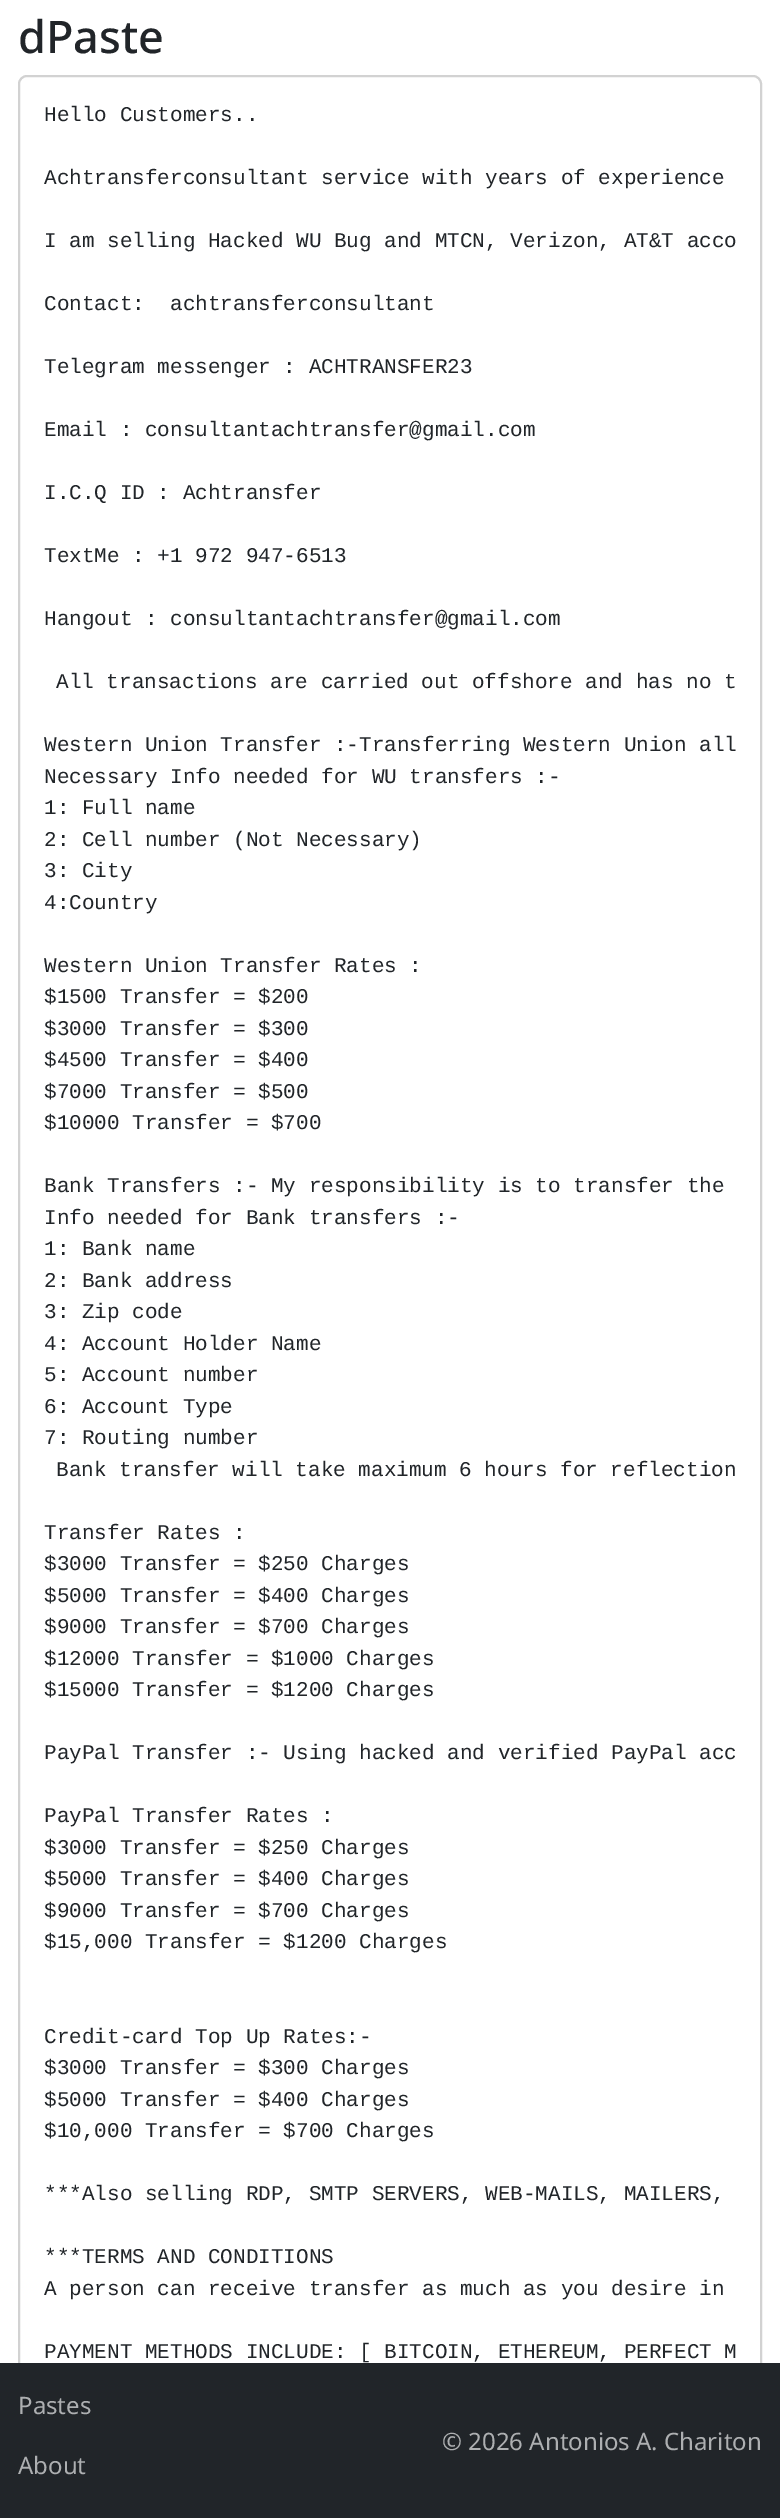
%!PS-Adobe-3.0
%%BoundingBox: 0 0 780 2518
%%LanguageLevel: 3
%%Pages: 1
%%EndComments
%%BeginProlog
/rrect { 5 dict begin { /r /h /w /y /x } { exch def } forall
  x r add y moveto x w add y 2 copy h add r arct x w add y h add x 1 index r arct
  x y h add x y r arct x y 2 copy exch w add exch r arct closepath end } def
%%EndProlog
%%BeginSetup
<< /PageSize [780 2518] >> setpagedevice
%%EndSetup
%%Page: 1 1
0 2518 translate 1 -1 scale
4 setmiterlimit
1 setgray
0 0 780 2518 rectfill
0.824 setgray
2 setlinewidth
19 76 742 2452 8 rrect stroke
0.129 0.145 0.161 setrgbcolor
0 2363 780 155 rectfill
/NotoSans-Medium [45 0 0 -45 0 0] selectfont
18 53 moveto (dPaste) show
/LiberationMono-Regular [21 0 0 -21 0 0] selectfont
44 121 moveto (Hello Customers..) show
44 184 moveto (Achtransferconsultant service with years of experience) show
44 247 moveto (I am selling Hacked WU Bug and MTCN, Verizon, AT&T acco) show
44 310 moveto (Contact:  achtransferconsultant) show
44 373 moveto (Telegram messenger : ACHTRANSFER23) show
44 436 moveto (Email : consultantachtransfer@gmail.com) show
44 499 moveto (I.C.Q ID : Achtransfer) show
44 562 moveto (TextMe : +1 972 947-6513) show
44 625 moveto (Hangout : consultantachtransfer@gmail.com) show
56 688 moveto (All transactions are carried out offshore and has no t) show
gsave
44 101 693 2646 rectclip
44 751 moveto (Western Union Transfer :-Transferring Western Union all) show
grestore
44 783 moveto (Necessary Info needed for WU transfers :-) show
44 814 moveto (1: Full name) show
44 846 moveto (2: Cell number \(Not Necessary\)) show
44 877 moveto (3: City) show
44 909 moveto (4:Country) show
gsave
44 101 693 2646 rectclip
44 972 moveto (Western Union Transfer Rates :) show
grestore
44 1003 moveto ($1500 Transfer = $200) show
44 1035 moveto ($3000 Transfer = $300) show
44 1066 moveto ($4500 Transfer = $400) show
44 1098 moveto ($7000 Transfer = $500) show
44 1129 moveto ($10000 Transfer = $700) show
44 1192 moveto (Bank Transfers :- My responsibility is to transfer the) show
44 1224 moveto (Info needed for Bank transfers :-) show
44 1255 moveto (1: Bank name) show
44 1287 moveto (2: Bank address) show
44 1318 moveto (3: Zip code) show
44 1350 moveto (4: Account Holder Name) show
44 1381 moveto (5: Account number) show
44 1413 moveto (6: Account Type) show
44 1444 moveto (7: Routing number) show
56 1476 moveto (Bank transfer will take maximum 6 hours for reflection) show
44 1539 moveto (Transfer Rates :) show
44 1570 moveto ($3000 Transfer = $250 Charges) show
44 1602 moveto ($5000 Transfer = $400 Charges) show
44 1633 moveto ($9000 Transfer = $700 Charges) show
44 1665 moveto ($12000 Transfer = $1000 Charges) show
44 1696 moveto ($15000 Transfer = $1200 Charges) show
44 1759 moveto (PayPal Transfer :- Using hacked and verified PayPal acc) show
44 1822 moveto (PayPal Transfer Rates :) show
44 1854 moveto ($3000 Transfer = $250 Charges) show
44 1885 moveto ($5000 Transfer = $400 Charges) show
44 1917 moveto ($9000 Transfer = $700 Charges) show
44 1948 moveto ($15,000 Transfer = $1200 Charges) show
44 2043 moveto (Credit-card Top Up Rates:-) show
44 2074 moveto ($3000 Transfer = $300 Charges) show
44 2106 moveto ($5000 Transfer = $400 Charges) show
44 2137 moveto ($10,000 Transfer = $700 Charges) show
44 2200 moveto (***Also selling RDP, SMTP SERVERS, WEB-MAILS, MAILERS,) show
44 2263 moveto (***TERMS AND CONDITIONS) show
44 2295 moveto (A person can receive transfer as much as you desire in) show
44 2358 moveto (PAYMENT METHODS INCLUDE: [ BITCOIN, ETHEREUM, PERFECT M) show
/NotoSans-Regular [24 0 0 -24 0 0] selectfont
0.678 0.686 0.694 setrgbcolor
18 2414 moveto (Pastes) show
18 2474 moveto (About) show
442 2450 moveto (© 2026 Antonios A. Chariton) show
showpage
%%EOF
